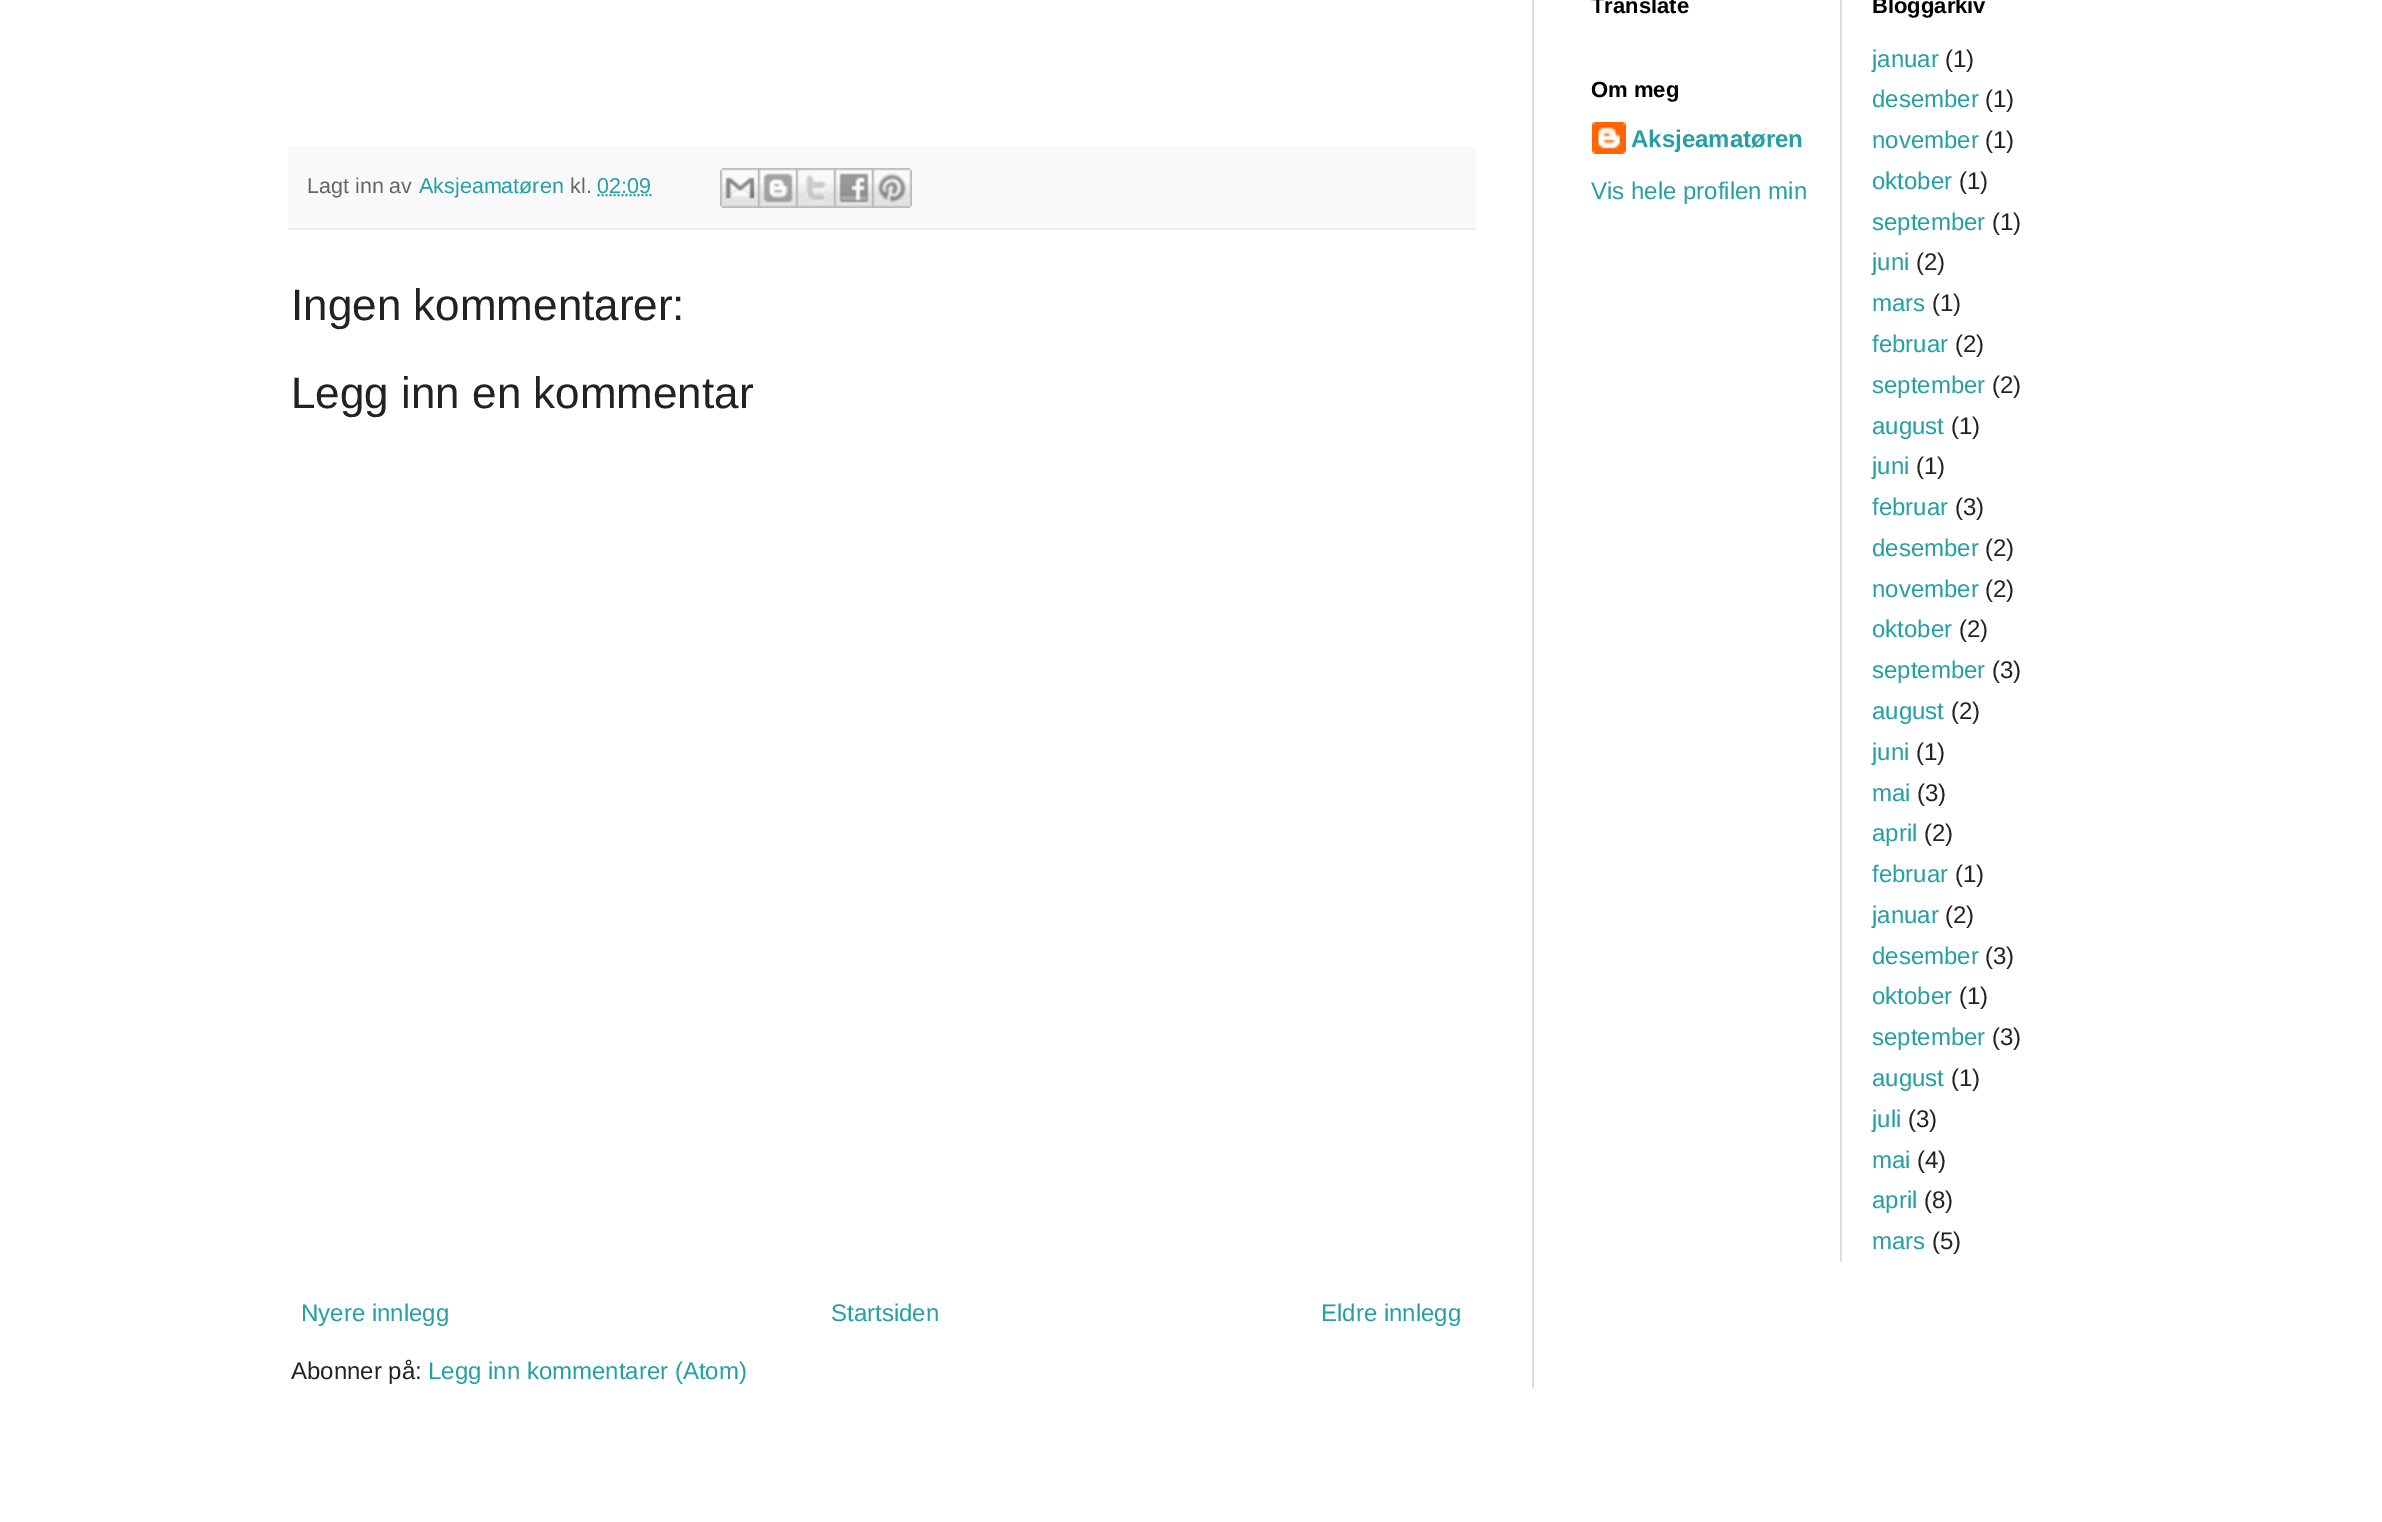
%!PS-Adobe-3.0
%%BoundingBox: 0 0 2382 1522
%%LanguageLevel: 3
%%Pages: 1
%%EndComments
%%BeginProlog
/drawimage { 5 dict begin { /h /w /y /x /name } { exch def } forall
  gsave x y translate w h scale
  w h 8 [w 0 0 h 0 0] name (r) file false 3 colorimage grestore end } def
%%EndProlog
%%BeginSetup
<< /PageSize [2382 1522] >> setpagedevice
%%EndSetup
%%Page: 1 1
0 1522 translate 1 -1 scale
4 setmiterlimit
1 setgray
0 0 2382 1522 rectfill
0.976 setgray
288 146 1188 82 rectfill
0.933 setgray
288 228 1188 2 rectfill
0.141 0.624 0.639 setrgbcolor
2 setlinewidth
[2 2] 0 setdash
newpath 597.5 195 moveto 651.5 195 lineto stroke
(images/1.raw) 720 168 38 40 drawimage
(images/2.raw) 758 168 38 40 drawimage
(images/3.raw) 796 168 38 40 drawimage
(images/4.raw) 834 168 38 40 drawimage
(images/5.raw) 872 168 40 40 drawimage
(images/6.raw) 1592 122 34 32 drawimage
0.867 setgray
1840 0 2 1262 rectfill
1532 0 2 1388 rectfill
/LiberationSans-Regular [21.5 0 0 -21.5 0 0] selectfont
0.4 setgray
307 193 moveto (Lagt inn av) show
0.141 0.624 0.639 setrgbcolor
419 193 moveto (Aksjeamatøren) show
0.4 setgray
570 193 moveto (kl.) show
0.141 0.624 0.639 setrgbcolor
597 193 moveto (02:09) show
/LiberationSans-Regular [44 0 0 -44 0 0] selectfont
0.133 setgray
291 320 moveto (Ingen kommentarer:) show
291 408 moveto (Legg inn en kommentar) show
/LiberationSans-Regular [24 0 0 -24 0 0] selectfont
0.141 0.624 0.639 setrgbcolor
301 1321 moveto (Nyere innlegg) show
831 1321 moveto (Startsiden) show
1321 1321 moveto (Eldre innlegg) show
0.133 setgray
291 1379 moveto (Abonner på:) show
0.141 0.624 0.639 setrgbcolor
428 1379 moveto (Legg inn kommentarer \(Atom\)) show
/LiberationSans-Bold [22 0 0 -22 0 0] selectfont
0 setgray
1591 13 moveto (Translate) show
1591 97 moveto (Om meg) show
/LiberationSans-Bold [24 0 0 -24 0 0] selectfont
0.141 0.624 0.639 setrgbcolor
1631 147 moveto (Aksjeamatøren) show
/LiberationSans-Regular [24 0 0 -24 0 0] selectfont
1591 199 moveto (Vis hele profilen min) show
/LiberationSans-Bold [22 0 0 -22 0 0] selectfont
0 setgray
1872 13 moveto (Bloggarkiv) show
/LiberationSans-Regular [24 0 0 -24 0 0] selectfont
0.141 0.624 0.639 setrgbcolor
1872 67 moveto (januar) show
0.133 setgray
1945 67 moveto (\(1\)) show
0.141 0.624 0.639 setrgbcolor
1872 107 moveto (desember) show
0.133 setgray
1985 107 moveto (\(1\)) show
0.141 0.624 0.639 setrgbcolor
1872 148 moveto (november) show
0.133 setgray
1985 148 moveto (\(1\)) show
0.141 0.624 0.639 setrgbcolor
1872 189 moveto (oktober) show
0.133 setgray
1959 189 moveto (\(1\)) show
0.141 0.624 0.639 setrgbcolor
1872 230 moveto (september) show
0.133 setgray
1992 230 moveto (\(1\)) show
0.141 0.624 0.639 setrgbcolor
1872 270 moveto (juni) show
0.133 setgray
1916 270 moveto (\(2\)) show
0.141 0.624 0.639 setrgbcolor
1872 311 moveto (mars) show
0.133 setgray
1932 311 moveto (\(1\)) show
0.141 0.624 0.639 setrgbcolor
1872 352 moveto (februar) show
0.133 setgray
1955 352 moveto (\(2\)) show
0.141 0.624 0.639 setrgbcolor
1872 393 moveto (september) show
0.133 setgray
1992 393 moveto (\(2\)) show
0.141 0.624 0.639 setrgbcolor
1872 434 moveto (august) show
0.133 setgray
1951 434 moveto (\(1\)) show
0.141 0.624 0.639 setrgbcolor
1872 474 moveto (juni) show
0.133 setgray
1916 474 moveto (\(1\)) show
0.141 0.624 0.639 setrgbcolor
1872 515 moveto (februar) show
0.133 setgray
1955 515 moveto (\(3\)) show
0.141 0.624 0.639 setrgbcolor
1872 556 moveto (desember) show
0.133 setgray
1985 556 moveto (\(2\)) show
0.141 0.624 0.639 setrgbcolor
1872 597 moveto (november) show
0.133 setgray
1985 597 moveto (\(2\)) show
0.141 0.624 0.639 setrgbcolor
1872 637 moveto (oktober) show
0.133 setgray
1959 637 moveto (\(2\)) show
0.141 0.624 0.639 setrgbcolor
1872 678 moveto (september) show
0.133 setgray
1992 678 moveto (\(3\)) show
0.141 0.624 0.639 setrgbcolor
1872 719 moveto (august) show
0.133 setgray
1951 719 moveto (\(2\)) show
0.141 0.624 0.639 setrgbcolor
1872 760 moveto (juni) show
0.133 setgray
1916 760 moveto (\(1\)) show
0.141 0.624 0.639 setrgbcolor
1872 801 moveto (mai) show
0.133 setgray
1917 801 moveto (\(3\)) show
0.141 0.624 0.639 setrgbcolor
1872 841 moveto (april) show
0.133 setgray
1924 841 moveto (\(2\)) show
0.141 0.624 0.639 setrgbcolor
1872 882 moveto (februar) show
0.133 setgray
1955 882 moveto (\(1\)) show
0.141 0.624 0.639 setrgbcolor
1872 923 moveto (januar) show
0.133 setgray
1945 923 moveto (\(2\)) show
0.141 0.624 0.639 setrgbcolor
1872 964 moveto (desember) show
0.133 setgray
1985 964 moveto (\(3\)) show
0.141 0.624 0.639 setrgbcolor
1872 1004 moveto (oktober) show
0.133 setgray
1959 1004 moveto (\(1\)) show
0.141 0.624 0.639 setrgbcolor
1872 1045 moveto (september) show
0.133 setgray
1992 1045 moveto (\(3\)) show
0.141 0.624 0.639 setrgbcolor
1872 1086 moveto (august) show
0.133 setgray
1951 1086 moveto (\(1\)) show
0.141 0.624 0.639 setrgbcolor
1872 1127 moveto (juli) show
0.133 setgray
1908 1127 moveto (\(3\)) show
0.141 0.624 0.639 setrgbcolor
1872 1168 moveto (mai) show
0.133 setgray
1917 1168 moveto (\(4\)) show
0.141 0.624 0.639 setrgbcolor
1872 1208 moveto (april) show
0.133 setgray
1924 1208 moveto (\(8\)) show
0.141 0.624 0.639 setrgbcolor
1872 1249 moveto (mars) show
0.133 setgray
1932 1249 moveto (\(5\)) show
showpage
%%EOF
